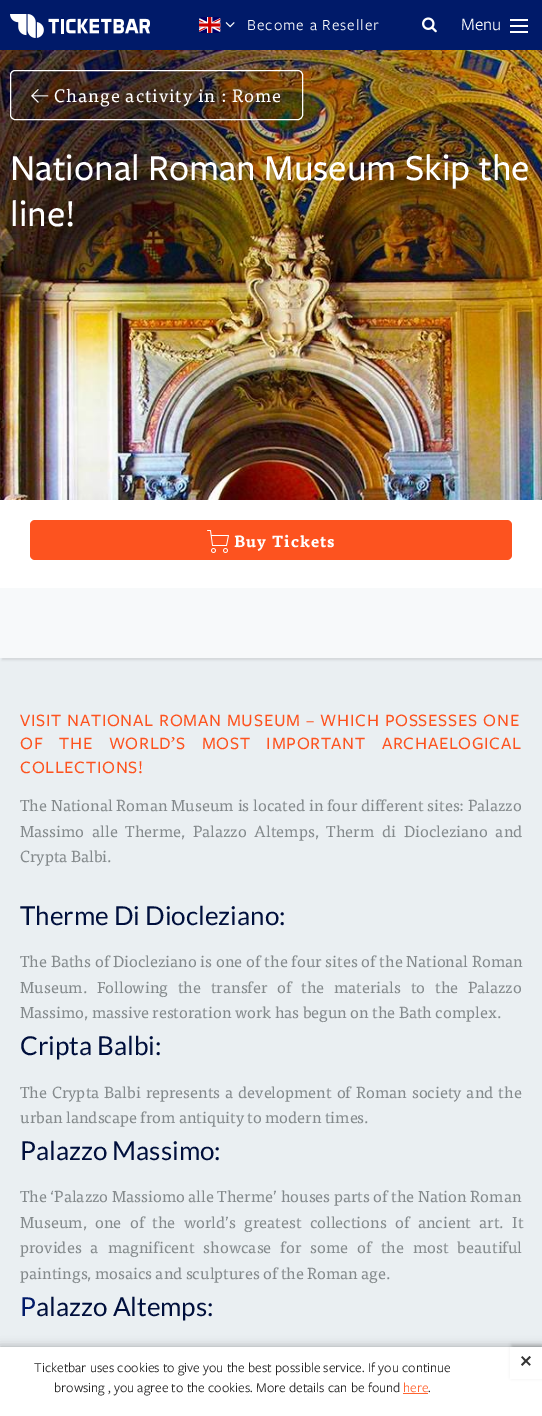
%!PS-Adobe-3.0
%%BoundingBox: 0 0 542 1416
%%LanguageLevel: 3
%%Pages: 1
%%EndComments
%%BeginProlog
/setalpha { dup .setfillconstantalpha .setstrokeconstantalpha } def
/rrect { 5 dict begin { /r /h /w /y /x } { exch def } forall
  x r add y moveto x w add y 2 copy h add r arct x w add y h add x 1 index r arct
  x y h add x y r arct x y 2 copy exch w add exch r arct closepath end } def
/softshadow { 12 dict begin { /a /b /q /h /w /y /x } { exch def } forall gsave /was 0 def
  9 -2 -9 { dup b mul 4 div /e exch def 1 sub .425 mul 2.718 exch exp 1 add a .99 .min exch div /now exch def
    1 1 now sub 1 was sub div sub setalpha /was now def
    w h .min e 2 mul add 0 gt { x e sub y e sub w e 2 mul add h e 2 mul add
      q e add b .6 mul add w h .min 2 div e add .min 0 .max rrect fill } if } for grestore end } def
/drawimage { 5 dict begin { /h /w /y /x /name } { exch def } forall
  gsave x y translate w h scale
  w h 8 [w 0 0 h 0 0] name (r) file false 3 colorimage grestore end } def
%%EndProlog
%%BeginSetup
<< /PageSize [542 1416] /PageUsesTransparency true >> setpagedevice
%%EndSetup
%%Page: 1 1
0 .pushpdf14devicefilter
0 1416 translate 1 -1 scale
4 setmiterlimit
0.918 0.937 0.949 setrgbcolor
0 0 542 1416 rectfill
0 0.102 0.412 setrgbcolor
0 0 542 50 rectfill
(images/1.raw) 10 14 140 24 drawimage
(images/2.raw) 199 17 22 16 drawimage
(images/3.raw) 225 22 10 6 drawimage
(images/4.raw) 422 17 15 16 drawimage
1 setgray
510 25 18 2 rectfill
510 19 18 2 rectfill
510 31 18 2 rectfill
(images/5.raw) 0 50 542 450 drawimage
0.1 setalpha
0 setgray
10.5 70.5 292 49 4.5 rrect fill
1 setalpha
1 setgray
10.5 70.5 292 49 4.5 rrect stroke
(images/6.raw) 31 89 18 14 drawimage
0 setgray
2 590 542 70 0 1 0.1 softshadow
1 setgray
0 500 542 88 rectfill
0.992 0.325 0.122 setrgbcolor
30 520 482 40 5 rrect fill
(images/7.raw) 207 530 22 23 drawimage
0.969 0.976 0.98 setrgbcolor
0 588 542 70 rectfill
0 setgray
0 1347 542 69 0 5 0.3 softshadow
1 setgray
0 1347 542 69 rectfill
gsave
newpath 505 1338 moveto 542 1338 lineto 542 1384 lineto 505 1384 lineto closepath 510 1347 moveto 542 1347 lineto 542 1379 lineto 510 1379 lineto closepath eoclip newpath
0 setgray
512 1345 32 32 0 2 0.2 softshadow
grestore
1 0.4 0.2 setrgbcolor
403 1393 25 1 rectfill
/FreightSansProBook-Regular [16 0 0 -16 0 0] selectfont
1 setgray
247 30 moveto 1 0 (Become a Reseller) ashow
/FreightSansProBook-Regular [18 0 0 -18 0 0] selectfont
461 30 moveto (Menu) show
/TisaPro-Regular [18 0 0 -18 0 0] selectfont
54 102 moveto 1 0 (Change activity in : Rome) ashow
/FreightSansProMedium-Medium [38 0 0 -38 0 0] selectfont
10 180 moveto (National Roman Museum Skip the) show
10 226 moveto (line!) show
/TisaPro-Bold [16 0 0 -16 0 0] selectfont
234 547 moveto 1 0 (Buy Tickets) ashow
/FreightSansProMedium-Medium [18 0 0 -18 0 0] selectfont
0.992 0.325 0.122 setrgbcolor
20 726 moveto 0.5 0 32 0.7 0 (VISIT NATIONAL ROMAN MUSEUM – WHICH POSSESSES ONE) awidthshow
20 749 moveto 11 0 32 0.7 0 (OF THE WORLD’S MOST IMPORTANT ARCHAELOGICAL) awidthshow
20 773 moveto 0.7 0 (COLLECTIONS!) ashow
/TisaPro-Regular [16 0 0 -16 0 0] selectfont
0.518 0.541 0.549 setrgbcolor
20 811 moveto 0.5 0 32 (The National Roman Museum is located in four different sites: Palazzo) widthshow
20 837 moveto 4.5 0 32 (Massimo alle Therme, Palazzo Altemps, Therm di Diocleziano and) widthshow
20 862 moveto (Crypta Balbi.) show
/Lato-Regular [26 0 0 -26 0 0] selectfont
0 0.059 0.235 setrgbcolor
20 925 moveto (Therme Di Diocleziano:) show
/TisaPro-Regular [16 0 0 -16 0 0] selectfont
0.518 0.541 0.549 setrgbcolor
20 967 moveto 0.5 0 32 (The Baths of Diocleziano is one of the four sites of the National Roman) widthshow
20 993 moveto 6.5 0 32 (Museum. Following the transfer of the materials to the Palazzo) widthshow
20 1018 moveto (Massimo, massive restoration work has begun on the Bath complex.) show
/Lato-Regular [26 0 0 -26 0 0] selectfont
0 0.059 0.235 setrgbcolor
20 1055 moveto (Cripta Balbi:) show
/TisaPro-Regular [16 0 0 -16 0 0] selectfont
0.518 0.541 0.549 setrgbcolor
20 1098 moveto 1.6 0 32 (The Crypta Balbi represents a development of Roman society and the) widthshow
20 1123 moveto (urban landscape from antiquity to modern times.) show
/Lato-Regular [26 0 0 -26 0 0] selectfont
0 0.059 0.235 setrgbcolor
20 1160 moveto (Palazzo Massimo:) show
/TisaPro-Regular [16 0 0 -16 0 0] selectfont
0.518 0.541 0.549 setrgbcolor
20 1202 moveto 0.25 0 32 (The ‘Palazzo Massiomo alle Therme’ houses parts of the Nation Roman) widthshow
20 1228 moveto 5 0 32 (Museum, one of the world’s greatest collections of ancient art. It) widthshow
20 1253 moveto 5.75 0 32 (provides a magnificent showcase for some of the most beautiful) widthshow
20 1279 moveto (paintings, mosaics and sculptures of the Roman age.) show
/Lato-Regular [26 0 0 -26 0 0] selectfont
0 0.102 0.412 setrgbcolor
20 1316 moveto (P) show
0 0.059 0.235 setrgbcolor
36 1316 moveto (alazzo Altemps:) show
/DejaVuSans-Bold [16 0 0 -16 0 0] selectfont
0.196 setgray
519 1367 moveto (✕) show
/FreightSansProBook-Regular [14 0 0 -14 0 0] selectfont
0.137 setgray
34 1372 moveto (Ticketbar uses cookies to give you the best possible service. If you continue) show
54 1392 moveto (browsing , you agree to the cookies. More details can be found) show
1 0.4 0.2 setrgbcolor
403 1392 moveto (here) show
0.137 setgray
428 1392 moveto (.) show
.poppdf14devicefilter showpage
%%EOF
